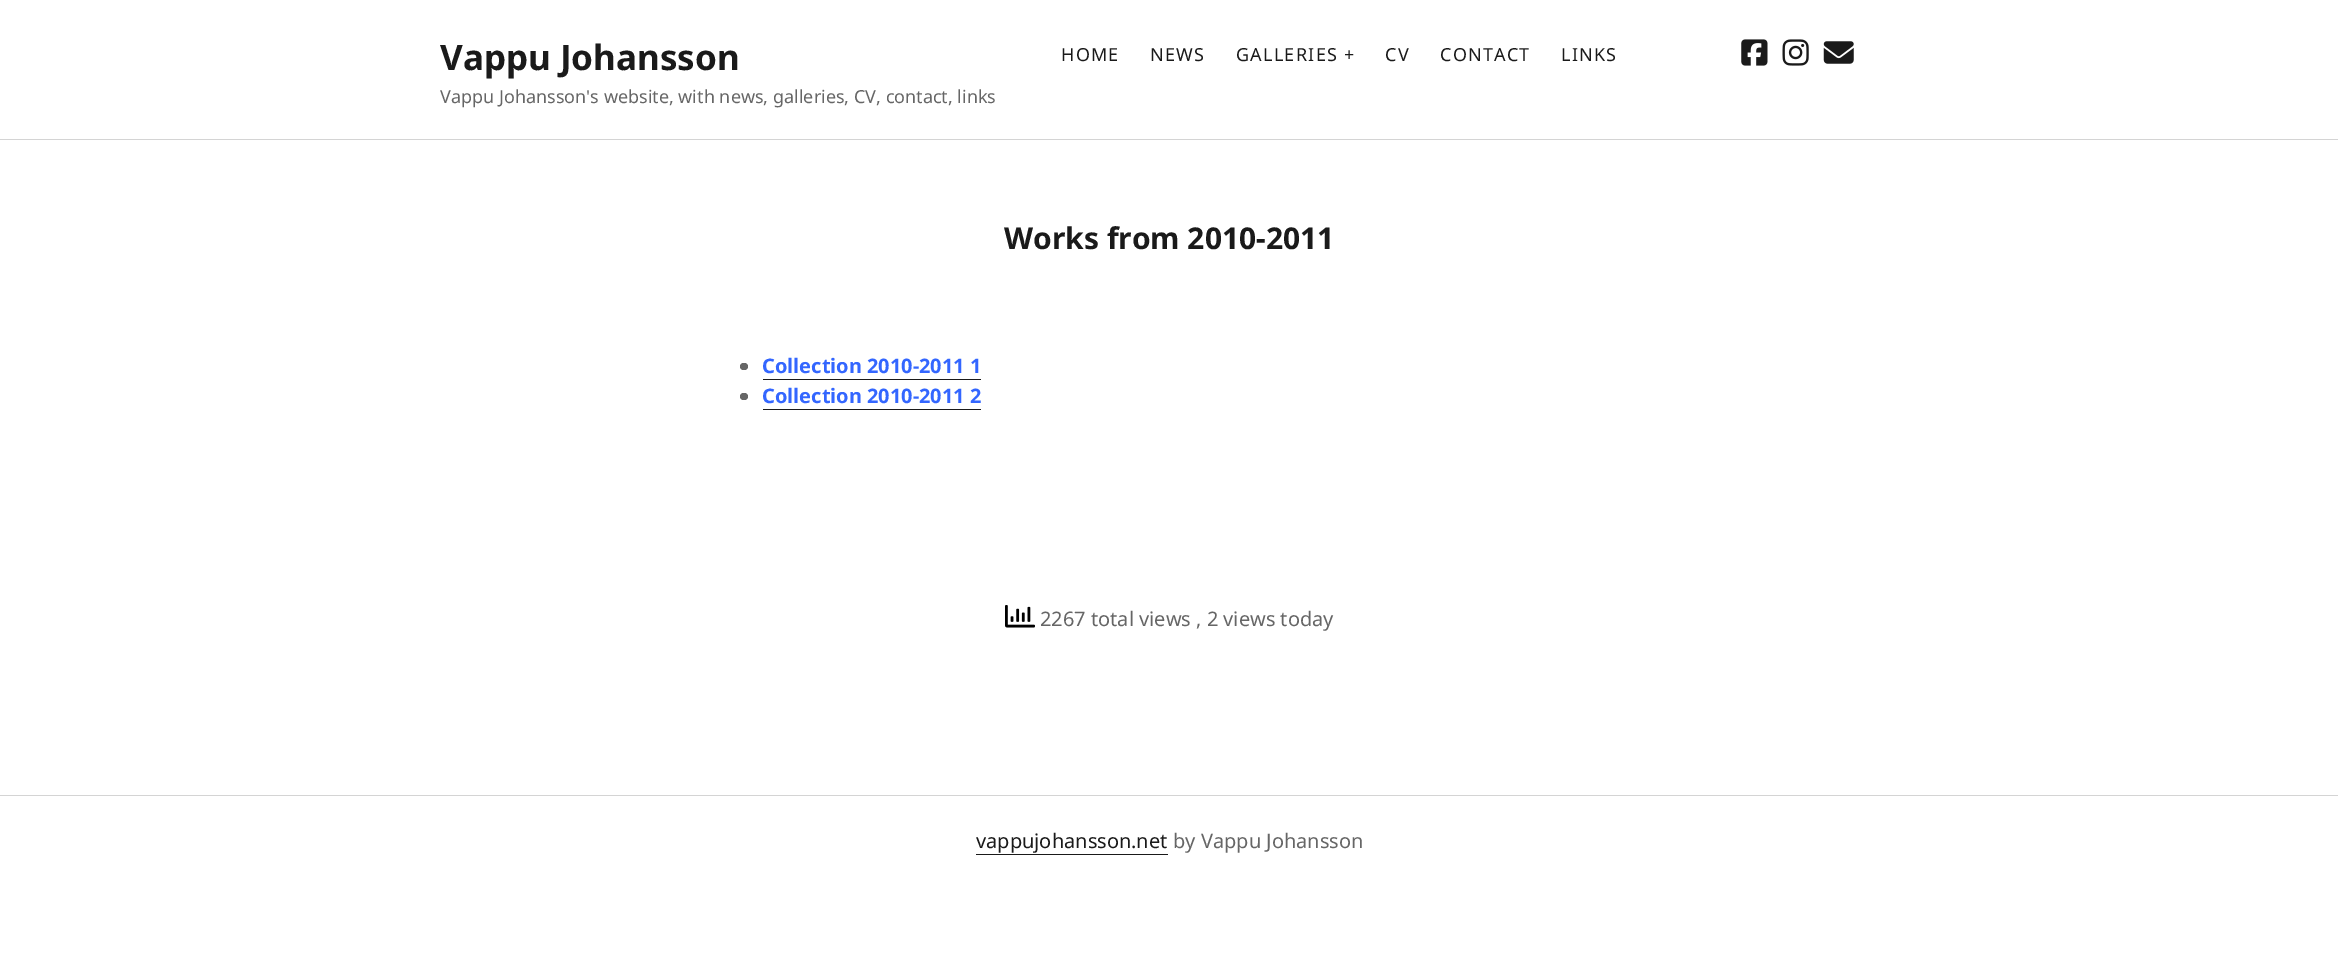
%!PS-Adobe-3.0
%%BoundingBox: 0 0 2338 979
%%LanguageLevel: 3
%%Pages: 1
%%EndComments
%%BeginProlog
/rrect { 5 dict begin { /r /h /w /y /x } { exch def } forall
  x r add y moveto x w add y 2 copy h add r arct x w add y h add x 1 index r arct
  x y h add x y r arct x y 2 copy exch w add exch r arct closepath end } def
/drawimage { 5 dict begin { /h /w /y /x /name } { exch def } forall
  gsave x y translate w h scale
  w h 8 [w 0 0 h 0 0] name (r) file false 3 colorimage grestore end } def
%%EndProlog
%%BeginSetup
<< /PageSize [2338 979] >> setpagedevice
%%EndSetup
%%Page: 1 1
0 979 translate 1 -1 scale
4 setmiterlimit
1 setgray
0 0 2338 979 rectfill
(images/1.raw) 1741 39 27 27 drawimage
(images/2.raw) 1782 39 27 27 drawimage
(images/3.raw) 1823 41 31 23 drawimage
0.831 setgray
0 139 2338 1 rectfill
0.4 setgray
740 363 8 7 3.5 rrect fill
0.102 setgray
763 379 218 1 rectfill
0.4 setgray
740 393 8 7 3.5 rrect fill
0.102 setgray
763 409 218 1 rectfill
(images/4.raw) 1005 605 30 23 drawimage
0.831 setgray
0 795 2338 1 rectfill
0.102 setgray
976 854 192 1 rectfill
/NotoSans-Bold [35 0 0 -35 0 0] selectfont
440 70 moveto (Vappu Johansson) show
/NotoSans-Regular [18 0 0 -18 0 0] selectfont
0.4 setgray
440 103 moveto (Vappu Johansson's website, with news, galleries, CV, contact, links) show
0.102 setgray
1061 61 moveto 1.25 0 (HOME) ashow
1150 61 moveto 1.25 0 (NEWS) ashow
1236 61 moveto 1.25 0 (GALLERIES +) ashow
1385 61 moveto 1.25 0 (CV) ashow
1440 61 moveto 1.25 0 (CONTACT) ashow
1561 61 moveto 1.25 0 (LINKS) ashow
/NotoSans-Bold [30 0 0 -30 0 0] selectfont
1004 249 moveto (Works from 2010-2011) show
/NotoSans-Bold [20 0 0 -20 0 0] selectfont
0.2 0.4 1 setrgbcolor
762 373 moveto (Collection 2010-2011 1) show
762 403 moveto (Collection 2010-2011 2) show
/NotoSans-Regular [20 0 0 -20 0 0] selectfont
0.4 setgray
1040 626 moveto (2267 total views , 2 views today) show
0.102 setgray
976 848 moveto (vappujohansson.net) show
0.4 setgray
1173 848 moveto (by Vappu Johansson) show
showpage
%%EOF
